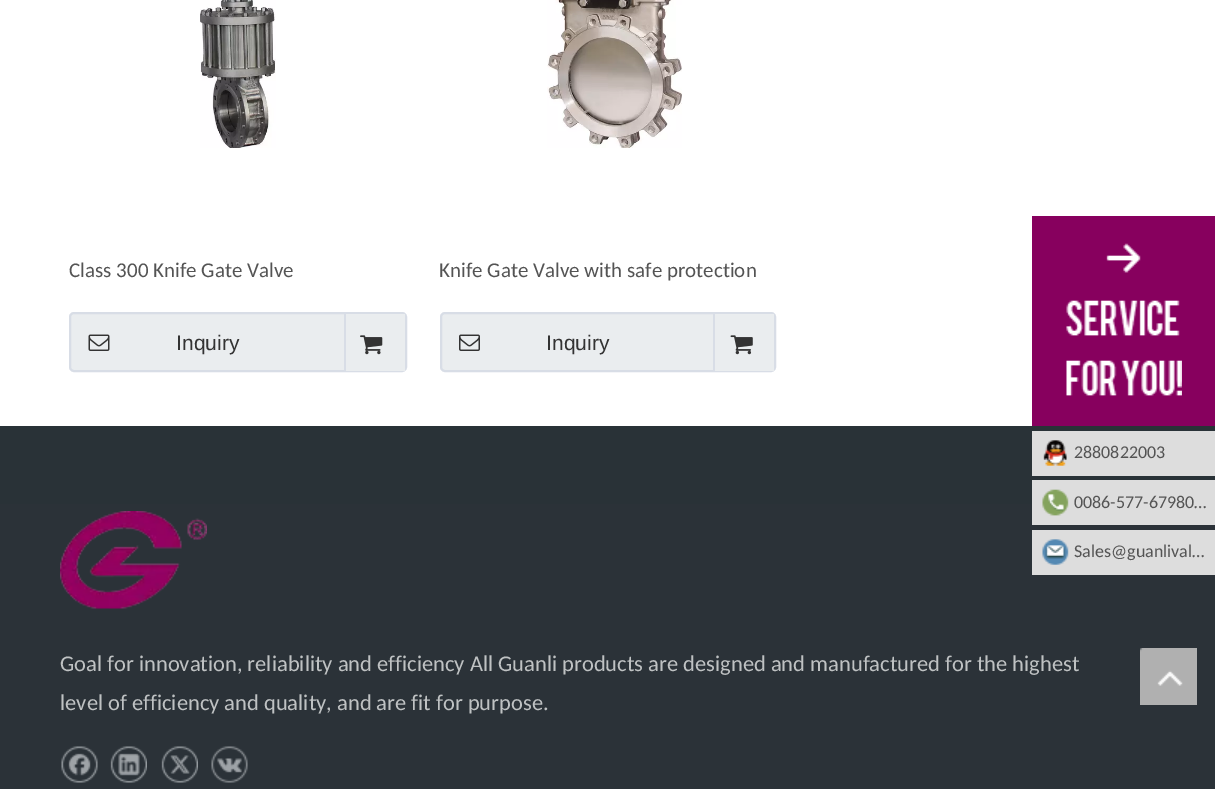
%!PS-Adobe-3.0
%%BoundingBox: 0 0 1215 789
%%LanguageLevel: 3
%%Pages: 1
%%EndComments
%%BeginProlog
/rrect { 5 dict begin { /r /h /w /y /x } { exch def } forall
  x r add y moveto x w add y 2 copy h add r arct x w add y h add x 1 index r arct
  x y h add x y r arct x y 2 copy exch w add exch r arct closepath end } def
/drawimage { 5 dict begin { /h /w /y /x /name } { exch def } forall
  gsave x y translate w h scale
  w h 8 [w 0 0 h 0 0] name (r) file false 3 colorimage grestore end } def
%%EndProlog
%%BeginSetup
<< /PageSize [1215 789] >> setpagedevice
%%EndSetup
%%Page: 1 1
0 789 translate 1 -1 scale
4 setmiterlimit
1 setgray
0 0 1215 789 rectfill
(images/1.raw) 200 0 76 148 drawimage
0.918 0.929 0.937 setrgbcolor
70 313 336 58 4 rrect gsave fill grestore
0.847 0.867 0.902 setrgbcolor
2 setlinewidth
stroke
(images/2.raw) 88 334 22 17 drawimage
0.918 0.929 0.937 setrgbcolor
346 314 59 57 rectfill
0.847 0.867 0.902 setrgbcolor
344 314 2 57 rectfill
(images/3.raw) 360 335 23 20 drawimage
(images/4.raw) 547 0 135 148 drawimage
0.918 0.929 0.937 setrgbcolor
441 313 334 58 4 rrect gsave fill grestore
0.847 0.867 0.902 setrgbcolor
stroke
(images/5.raw) 459 334 21 17 drawimage
0.918 0.929 0.937 setrgbcolor
715 314 59 57 rectfill
0.847 0.867 0.902 setrgbcolor
713 314 2 57 rectfill
(images/6.raw) 730 335 23 20 drawimage
0.161 0.196 0.216 setrgbcolor
0 426 1215 78 rectfill
0.529 0 0.369 setrgbcolor
1032 216 183 210 rectfill
(images/7.raw) 1066 243 116 153 drawimage
0.867 setgray
1032 431 183 45 rectfill
(images/8.raw) 1043 440 24 26 drawimage
0.169 0.196 0.22 setrgbcolor
0 504 1215 285 rectfill
0.867 setgray
1032 480 183 45 rectfill
(images/9.raw) 1042 489 27 27 drawimage
1032 530 183 45 rectfill
(images/10.raw) 1042 539 27 26 drawimage
(images/11.raw) 60 511 147 98 drawimage
(images/12.raw) 61 746 37 37 drawimage
(images/13.raw) 110 746 37 37 drawimage
(images/14.raw) 161 746 37 37 drawimage
(images/15.raw) 211 746 37 37 drawimage
(images/16.raw) 1140 648 57 57 drawimage
/Carlito-Regular [21 0 0 -21 0 0] selectfont
0.329 setgray
69 277 moveto (Class 300 Knife Gate Valve) show
/LiberationSans-Regular [21 0 0 -21 0 0] selectfont
0.2 setgray
176 350 moveto (Inquiry) show
/Carlito-Regular [21 0 0 -21 0 0] selectfont
0.329 setgray
439 277 moveto (Knife Gate Valve with safe protection) show
/LiberationSans-Regular [21 0 0 -21 0 0] selectfont
0.2 setgray
546 350 moveto (Inquiry) show
/Carlito-Regular [18 0 0 -18 0 0] selectfont
0.329 setgray
1074 458 moveto (2880822003) show
1074 508 moveto (0086-577-67980…) show
1074 557 moveto (Sales@guanlival…) show
/Carlito-Regular [22.5 0 0 -22.5 0 0] selectfont
0.749 0.761 0.765 setrgbcolor
60 671 moveto (Goal for innovation, reliability and efficiency All Guanli products are designed and manufactured for the highest) show
60 710 moveto (level of efficiency and quality, and are fit for purpose.) show
showpage
%%EOF
